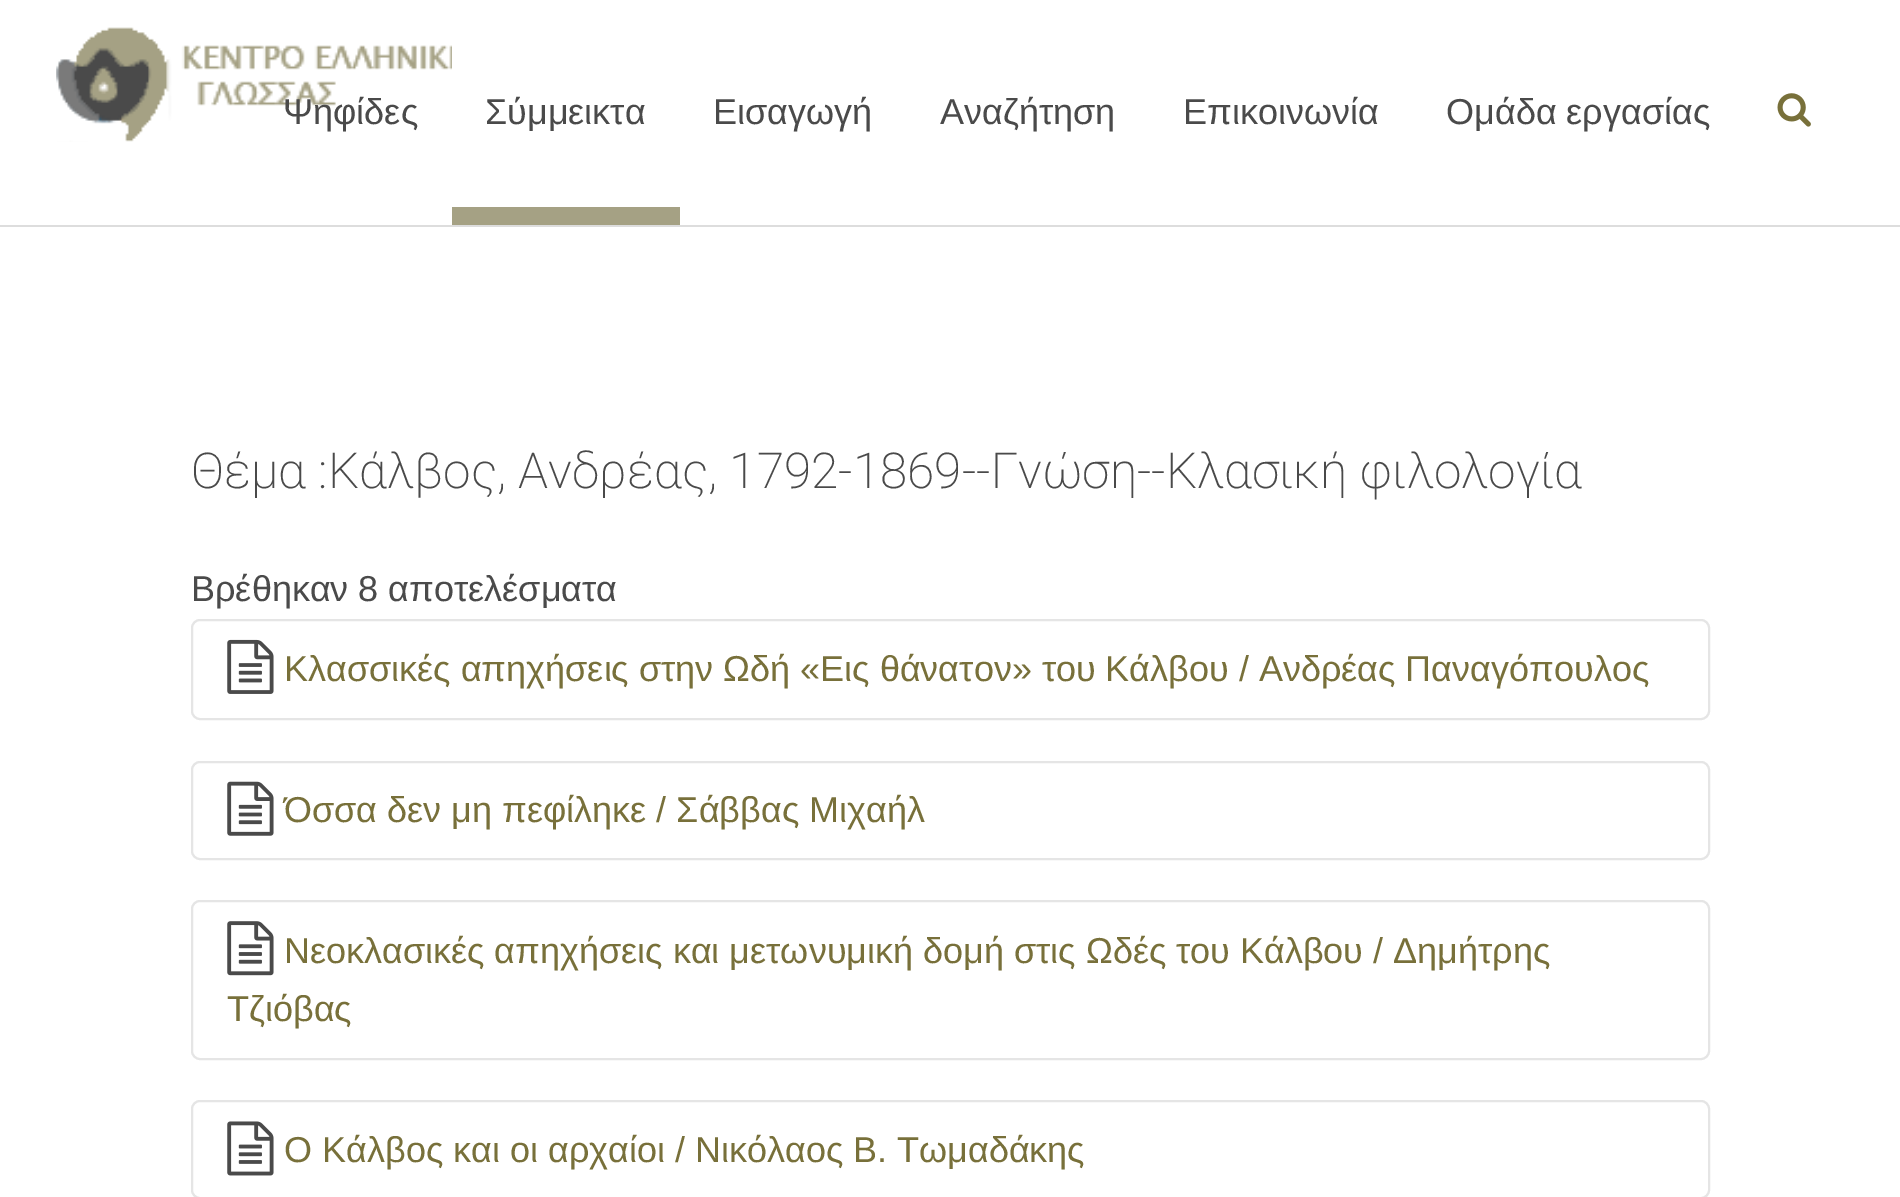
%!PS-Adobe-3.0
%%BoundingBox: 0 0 1900 1197
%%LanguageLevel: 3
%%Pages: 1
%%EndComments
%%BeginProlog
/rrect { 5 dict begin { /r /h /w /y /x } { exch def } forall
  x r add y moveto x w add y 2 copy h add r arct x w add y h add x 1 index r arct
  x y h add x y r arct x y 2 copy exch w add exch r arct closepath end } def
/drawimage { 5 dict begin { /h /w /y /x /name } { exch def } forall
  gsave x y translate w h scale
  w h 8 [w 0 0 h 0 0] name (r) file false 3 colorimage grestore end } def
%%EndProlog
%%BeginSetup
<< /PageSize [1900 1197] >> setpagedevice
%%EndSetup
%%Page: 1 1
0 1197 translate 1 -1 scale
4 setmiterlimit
1 setgray
0 0 1900 1197 rectfill
(images/1.raw) 56 27 396 115 drawimage
0.647 0.631 0.518 setrgbcolor
452 207 228 18 rectfill
(images/2.raw) 1777 93 34 34 drawimage
0.867 setgray
0 225 1900 2 rectfill
0.898 setgray
2 setlinewidth
192 620 1517 99 8 rrect stroke
(images/3.raw) 227 639 47 55 drawimage
192 762 1517 97 8 rrect stroke
(images/4.raw) 227 781 47 55 drawimage
192 901 1517 158 8 rrect stroke
(images/5.raw) 227 921 47 55 drawimage
192 1101 1517 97 8 rrect stroke
(images/6.raw) 227 1121 47 55 drawimage
/LiberationSans-Regular [36 0 0 -36 0 0] selectfont
0.29 setgray
283 124 moveto (Ψηφίδες) show
485 124 moveto (Σύμμεικτα) show
713 124 moveto (Εισαγωγή) show
940 124 moveto (Αναζήτηση) show
1183 124 moveto (Επικοινωνία) show
1446 124 moveto (Ομάδα εργασίας) show
/Roboto-ExtraLight [49.5 0 0 -49.5 0 0] selectfont
191 488 moveto (Θέμα :Κάλβος, Ανδρέας, 1792-1869--Γνώση--Κλασική φιλολογία) show
/LiberationSans-Regular [36 0 0 -36 0 0] selectfont
191 601 moveto (Βρέθηκαν 8 αποτελέσματα) show
0.471 0.439 0.227 setrgbcolor
284 681 moveto (Κλασσικές απηχήσεις στην Ωδή «Εις θάνατον» του Κάλβου / Ανδρέας Παναγόπουλος) show
284 822 moveto (Όσσα δεν μη πεφίληκε / Σάββας Μιχαήλ) show
284 963 moveto (Νεοκλασικές απηχήσεις και μετωνυμική δομή στις Ωδές του Κάλβου / Δημήτρης) show
227 1021 moveto (Τζιόβας) show
284 1162 moveto (Ο Κάλβος και οι αρχαίοι / Νικόλαος Β. Τωμαδάκης) show
showpage
%%EOF
